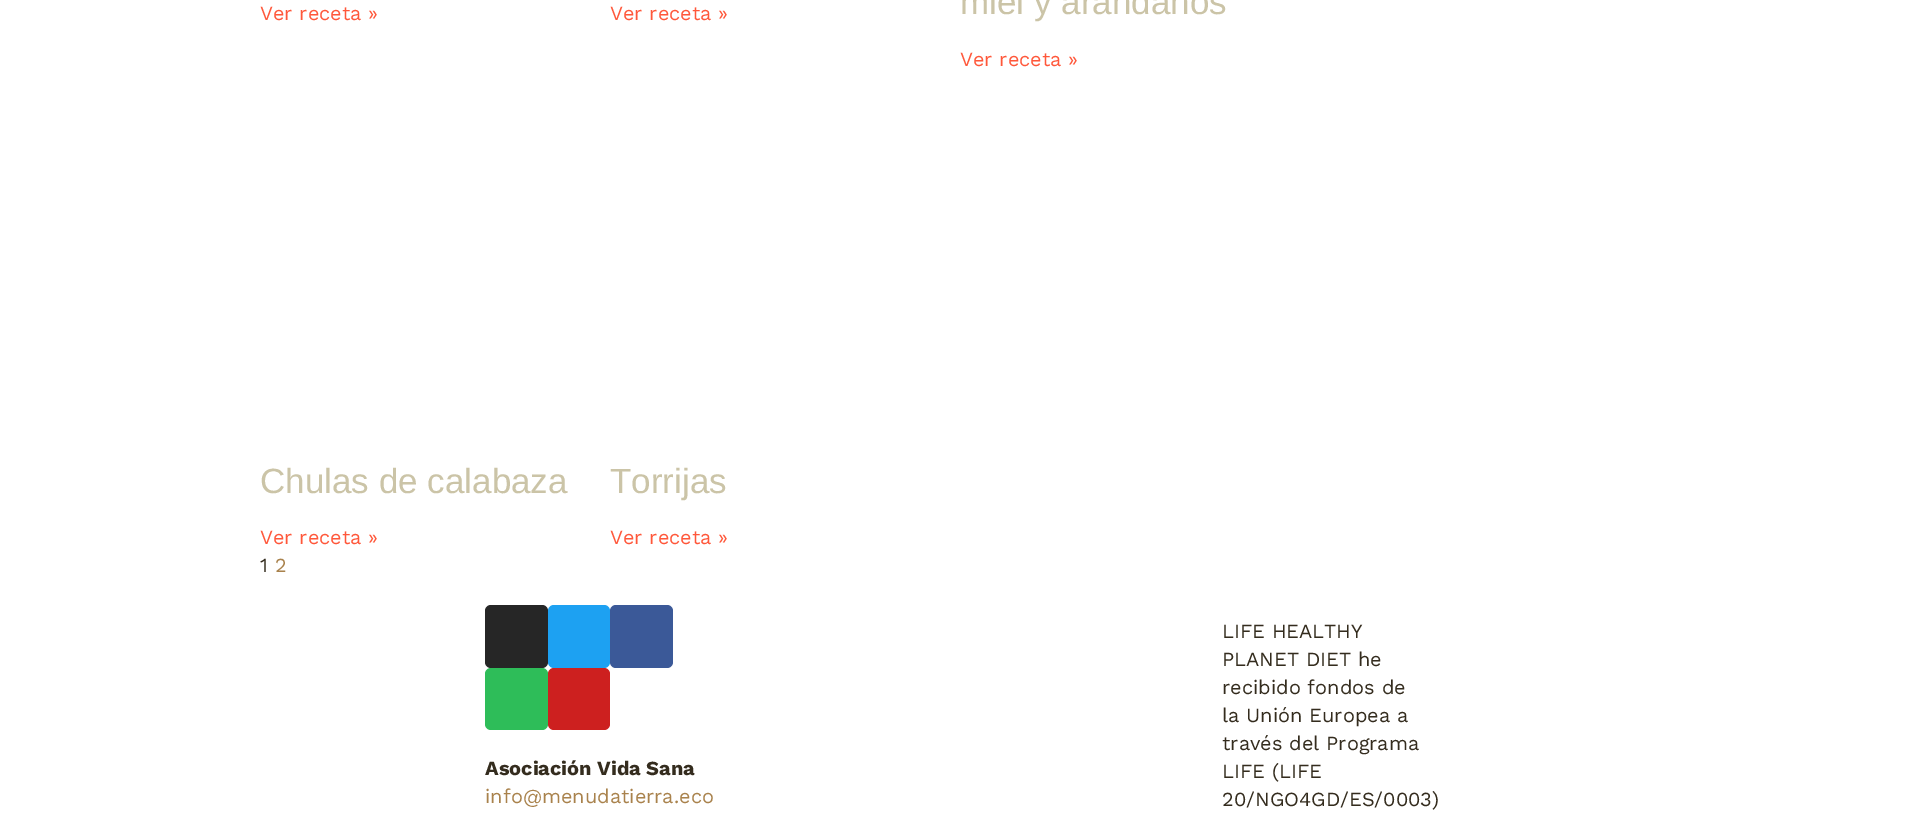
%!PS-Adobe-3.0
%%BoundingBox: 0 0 1920 827
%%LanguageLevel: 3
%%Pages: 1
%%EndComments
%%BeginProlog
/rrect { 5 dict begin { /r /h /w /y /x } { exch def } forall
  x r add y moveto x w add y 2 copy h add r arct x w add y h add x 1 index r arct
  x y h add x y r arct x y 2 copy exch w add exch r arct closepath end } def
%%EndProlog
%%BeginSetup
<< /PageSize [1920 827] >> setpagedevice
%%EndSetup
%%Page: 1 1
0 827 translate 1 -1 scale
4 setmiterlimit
1 setgray
0 0 1920 827 rectfill
0.149 setgray
485 605 63 63 6 rrect fill
0.114 0.631 0.949 setrgbcolor
548 605 62 63 6 rrect fill
0.231 0.349 0.596 setrgbcolor
610 605 63 63 6 rrect fill
0.18 0.741 0.349 setrgbcolor
485 668 63 62 6 rrect fill
0.804 0.125 0.122 setrgbcolor
548 668 62 62 6 rrect fill
/WorkSans-Regular [20 0 0 -20 0 0] selectfont
1 0.341 0.227 setrgbcolor
260 20 moveto (Ver receta ») show
610 20 moveto (Ver receta ») show
/LiberationSans-Regular [35 0 0 -35 0 0] selectfont
0.796 0.769 0.655 setrgbcolor
960 14 moveto (miel y arándanos) show
/WorkSans-Regular [20 0 0 -20 0 0] selectfont
1 0.341 0.227 setrgbcolor
960 66 moveto (Ver receta ») show
/LiberationSans-Regular [35 0 0 -35 0 0] selectfont
0.796 0.769 0.655 setrgbcolor
260 493 moveto (Chulas de calabaza) show
/WorkSans-Regular [20 0 0 -20 0 0] selectfont
1 0.341 0.227 setrgbcolor
260 544 moveto (Ver receta ») show
/LiberationSans-Regular [35 0 0 -35 0 0] selectfont
0.796 0.769 0.655 setrgbcolor
610 493 moveto (Torrijas) show
/WorkSans-Regular [20 0 0 -20 0 0] selectfont
1 0.341 0.227 setrgbcolor
610 544 moveto (Ver receta ») show
0.204 0.173 0.118 setrgbcolor
260 572 moveto (1) show
0.663 0.51 0.298 setrgbcolor
275 572 moveto (2) show
/WorkSans-Bold [20 0 0 -20 0 0] selectfont
0.204 0.173 0.118 setrgbcolor
485 775 moveto (Asociación Vida Sana) show
/WorkSans-Regular [20 0 0 -20 0 0] selectfont
0.663 0.51 0.298 setrgbcolor
485 803 moveto (info@menudatierra.eco) show
0.204 0.173 0.118 setrgbcolor
1222 638 moveto (LIFE HEALTHY) show
1222 666 moveto (PLANET DIET he) show
1222 694 moveto (recibido fondos de) show
1222 722 moveto (la Unión Europea a) show
1222 750 moveto (través del Programa) show
1222 778 moveto (LIFE \(LIFE) show
1222 806 moveto (20/NGO4GD/ES/0003\)) show
showpage
%%EOF
